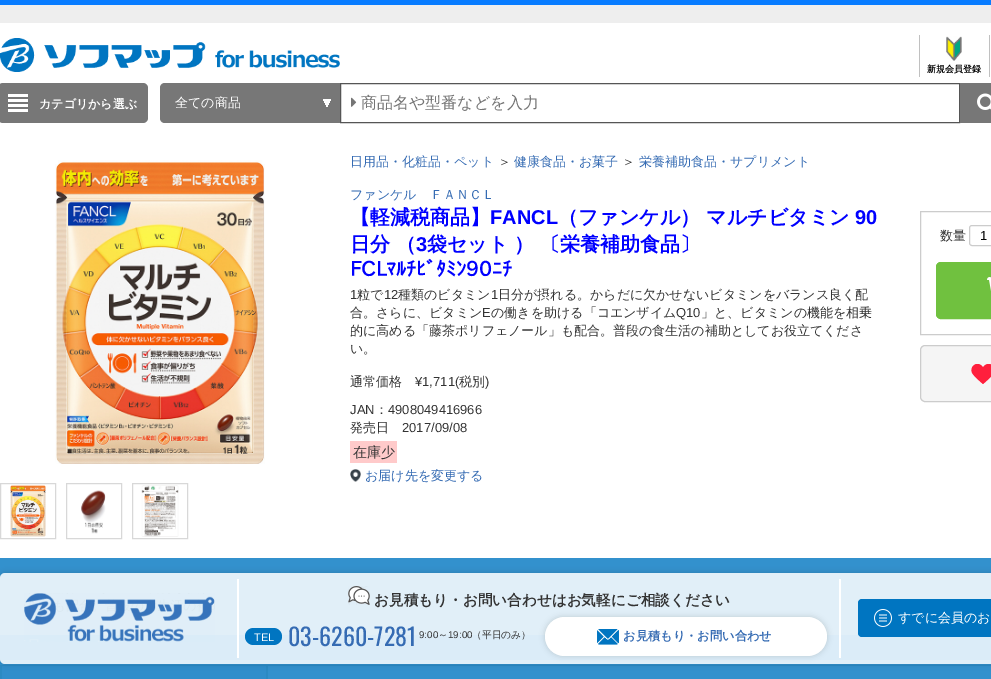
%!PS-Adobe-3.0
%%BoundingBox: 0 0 991 679
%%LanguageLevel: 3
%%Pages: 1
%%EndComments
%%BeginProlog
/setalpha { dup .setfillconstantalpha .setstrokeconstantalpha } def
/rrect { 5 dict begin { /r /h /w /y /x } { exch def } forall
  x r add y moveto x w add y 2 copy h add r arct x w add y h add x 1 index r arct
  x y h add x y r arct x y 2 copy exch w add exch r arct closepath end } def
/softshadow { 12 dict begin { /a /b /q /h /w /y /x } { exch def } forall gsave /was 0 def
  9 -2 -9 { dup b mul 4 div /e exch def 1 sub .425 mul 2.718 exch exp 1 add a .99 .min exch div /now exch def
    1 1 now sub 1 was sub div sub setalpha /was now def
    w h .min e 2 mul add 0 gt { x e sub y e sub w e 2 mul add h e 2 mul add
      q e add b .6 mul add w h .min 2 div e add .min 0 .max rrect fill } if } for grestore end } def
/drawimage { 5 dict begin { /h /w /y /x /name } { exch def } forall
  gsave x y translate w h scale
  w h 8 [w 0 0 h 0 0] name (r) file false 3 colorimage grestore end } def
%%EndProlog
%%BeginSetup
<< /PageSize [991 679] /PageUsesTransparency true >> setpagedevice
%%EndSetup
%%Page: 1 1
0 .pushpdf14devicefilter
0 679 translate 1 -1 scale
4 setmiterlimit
1 setgray
0 0 991 679 rectfill
0.2 0.569 0.804 setrgbcolor
0 558 991 107 rectfill
0.031 0.486 1 setrgbcolor
0 0 991 5 rectfill
0.933 setgray
0 5 991 18 rectfill
(images/1.raw) 0 38 340 34 drawimage
0.753 setgray
919 35 1 42 rectfill
(images/2.raw) 946 36 16 25 drawimage
989 35 1 42 rectfill
0.467 setgray
-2 83 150 40 5 rrect fill
(images/3.raw) 8 94 20 18 drawimage
newpath 165 83 moveto 340 83 lineto 340 123 lineto 165 123 lineto 162 123 160 121 160 118 curveto 160 88 lineto 160 85 162 83 165 83 curveto closepath fill
(images/4.raw) 323 99 8 8 drawimage
0.333 setgray
340.5 83.5 619 39 rectstroke
(images/5.raw) 351 97 6 10 drawimage
0.467 setgray
960 83 31 40 rectfill
(images/6.raw) 977 93 14 17 drawimage
(images/7.raw) 55 160 210 304 drawimage
0.847 setgray
0.5 483.5 55 55 rectstroke
(images/8.raw) 10 485 36 52 drawimage
66.5 483.5 55 55 rectstroke
(images/9.raw) 81 490 25 44 drawimage
132.5 483.5 55 55 rectstroke
(images/10.raw) 141 485 38 52 drawimage
1 0.792 0.792 setrgbcolor
350 441 47 22 rectfill
(images/11.raw) 350 469 11 13 drawimage
0.8 setgray
920.5 211.5 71 123 rectstroke
969.5 225.5 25 20 2.5 rrect stroke
0.439 0.757 0.247 setrgbcolor
936 262 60 57 5 rrect fill
(images/12.raw) 987 277 4 14 drawimage
936.5 262.5 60 56 4.5 rrect stroke
0.961 setgray
920 345 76 57 5 rrect fill
(images/13.raw) 971 364 20 20 drawimage
0.8 setgray
920.5 345.5 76 56 4.5 rrect stroke
0.043 0.502 0.804 setrgbcolor
0 635 991 25 rectfill
0.169 0.541 0.765 setrgbcolor
0 665 991 14 rectfill
0.188 0.557 0.796 setrgbcolor
2 666 264 13 rectfill
0.2 0.569 0.804 setrgbcolor
268 666 723 13 rectfill
gsave
newpath 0 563 moveto 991 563 lineto 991 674 lineto 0 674 lineto closepath 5 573 moveto 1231 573 lineto 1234 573 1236 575 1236 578 curveto 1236 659 lineto 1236 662 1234 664 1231 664 curveto 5 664 lineto 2 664 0 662 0 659 curveto 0 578 lineto 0 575 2 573 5 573 curveto closepath eoclip newpath
0 setgray
0 573 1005 91 5 3 0.15 softshadow
grestore
0.85 setalpha
1 setgray
0 573 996 91 5 rrect fill
1 setalpha
(images/14.raw) 24 593 191 49 drawimage
839 579 2 79 rectfill
237 579 2 79 rectfill
(images/15.raw) 348 586 22 19 drawimage
0 0.459 0.757 setrgbcolor
245 628 37 17 8.5 rrect fill
0 setgray
545 617 282 39 19.5 3 0.15 softshadow
1 setgray
545 617 282 39 19.5 rrect fill
(images/16.raw) 597 629 22 16 drawimage
0 0.459 0.757 setrgbcolor
858 599 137 38 4 rrect fill
(images/17.raw) 874 609 18 18 drawimage
/WenQuanYiZenHei-Bold [9 0 0 -9 0 0] selectfont
0 setgray
927 72 moveto (新規会員登録) show
/WenQuanYiZenHei-Bold [12 0 0 -12 0 0] selectfont
1 setgray
39 108 moveto (カテゴリから選ぶ) show
/WenQuanYiZenHei-Medium [13 0 0 -13 0 0] selectfont
175 107 moveto (全ての商品) show
/WenQuanYiZenHei-Medium [16 0 0 -16 0 0] selectfont
0.459 setgray
361 108 moveto (商品名や型番などを入力) show
/WenQuanYiZenHei-Medium [13 0 0 -13 0 0] selectfont
0.208 0.42 0.702 setrgbcolor
350 166 moveto (日用品・化粧品・ペット) show
0.2 setgray
498 166 moveto (＞) show
0.208 0.42 0.702 setrgbcolor
514 166 moveto (健康食品・お菓子) show
0.2 setgray
622 166 moveto (＞) show
0.208 0.42 0.702 setrgbcolor
639 166 moveto (栄養補助食品・サプリメント) show
350 199 moveto (ファンケル　ＦＡＮＣＬ) show
/WenQuanYiZenHei-Bold [20 0 0 -20 0 0] selectfont
0 0 1 setrgbcolor
350 224 moveto (【軽減税商品】) show
/LiberationSans-Bold [20 0 0 -20 0 0] selectfont
490 224 moveto (FANCL) show
/WenQuanYiZenHei-Bold [20 0 0 -20 0 0] selectfont
558 224 moveto (（ファンケル） マルチビタミン) show
/LiberationSans-Bold [20 0 0 -20 0 0] selectfont
855 224 moveto (90) show
/WenQuanYiZenHei-Bold [20 0 0 -20 0 0] selectfont
350 251 moveto (日分 （) show
/LiberationSans-Bold [20 0 0 -20 0 0] selectfont
416 251 moveto (3) show
/WenQuanYiZenHei-Bold [20 0 0 -20 0 0] selectfont
427 251 moveto (袋セット ） 〔栄養補助食品〕) show
/IPAPGothic-Bold [20 0 0 -20 0 0] selectfont
350 276 moveto (FCLﾏﾙﾁﾋﾞﾀﾐﾝ90ﾆﾁ) show
/LiberationSans-Regular [13 0 0 -13 0 0] selectfont
0.2 setgray
350 299 moveto (1) show
/WenQuanYiZenHei-Medium [13 0 0 -13 0 0] selectfont
357 299 moveto (粒で) show
/LiberationSans-Regular [13 0 0 -13 0 0] selectfont
384 299 moveto (12) show
/WenQuanYiZenHei-Medium [13 0 0 -13 0 0] selectfont
398 299 moveto (種類のビタミン) show
/LiberationSans-Regular [13 0 0 -13 0 0] selectfont
491 299 moveto (1) show
/WenQuanYiZenHei-Medium [13 0 0 -13 0 0] selectfont
498 299 moveto (日分が摂れる。からだに欠かせないビタミンをバランス良く配) show
350 317 moveto (合。さらに、ビタミン) show
/LiberationSans-Regular [13 0 0 -13 0 0] selectfont
482 317 moveto (E) show
/WenQuanYiZenHei-Medium [13 0 0 -13 0 0] selectfont
491 317 moveto (の働きを助ける「コエンザイム) show
/LiberationSans-Regular [13 0 0 -13 0 0] selectfont
676 317 moveto (Q10) show
/WenQuanYiZenHei-Medium [13 0 0 -13 0 0] selectfont
701 317 moveto (」と、ビタミンの機能を相乗) show
350 335 moveto (的に高める「藤茶ポリフェノール」も配合。普段の食生活の補助としてお役立てくださ) show
350 353 moveto (い。) show
350 386 moveto (通常価格) show
/LiberationSans-Regular [13 0 0 -13 0 0] selectfont
415 386 moveto (¥1,711\() show
/WenQuanYiZenHei-Medium [13 0 0 -13 0 0] selectfont
459 386 moveto (税別) show
/LiberationSans-Regular [13 0 0 -13 0 0] selectfont
485 386 moveto (\)) show
350 414 moveto (JAN) show
/WenQuanYiZenHei-Medium [13 0 0 -13 0 0] selectfont
375 414 moveto (：) show
/LiberationSans-Regular [13 0 0 -13 0 0] selectfont
388 414 moveto (4908049416966) show
/WenQuanYiZenHei-Medium [13 0 0 -13 0 0] selectfont
350 432 moveto (発売日) show
/LiberationSans-Regular [13 0 0 -13 0 0] selectfont
402 432 moveto (2017/09/08) show
/WenQuanYiZenHei-Medium [14 0 0 -14 0 0] selectfont
353 457 moveto (在庫少) show
/WenQuanYiZenHei-Medium [13 0 0 -13 0 0] selectfont
0.208 0.42 0.702 setrgbcolor
365 480 moveto (お届け先を変更する) show
0.2 setgray
940 240 moveto (数量) show
/LiberationSans-Regular [13 0 0 -13 0 0] selectfont
0 setgray
980 240 moveto (1) show
/WenQuanYiZenHei-Bold [14.6 0 0 -14.6 0 0] selectfont
0.2 setgray
374 605 moveto (お見積もり・お問い合わせはお気軽にご相談ください) show
/LiberationSans-Regular [11 0 0 -11 0 0] selectfont
1 setgray
254 641 moveto (TEL) show
/Oswald-Regular [24 0 0 -24 0 0] selectfont
0.208 0.42 0.702 setrgbcolor
288 646 moveto (03-6260-7281) show
/LiberationSans-Regular [9.75 0 0 -9.75 0 0] selectfont
0.2 setgray
419 638 moveto (9:00) show
/WenQuanYiZenHei-Medium [9.75 0 0 -9.75 0 0] selectfont
438 638 moveto (～) show
/LiberationSans-Regular [9.75 0 0 -9.75 0 0] selectfont
448 638 moveto (19:00) show
/WenQuanYiZenHei-Medium [9.75 0 0 -9.75 0 0] selectfont
472 638 moveto (（平日のみ）) show
/WenQuanYiZenHei-Bold [12.25 0 0 -12.25 0 0] selectfont
0.208 0.42 0.702 setrgbcolor
623 640 moveto (お見積もり・お問い合わせ) show
/WenQuanYiZenHei-Medium [13 0 0 -13 0 0] selectfont
1 setgray
898 622 moveto (すでに会員のお) show
.poppdf14devicefilter showpage
%%EOF
